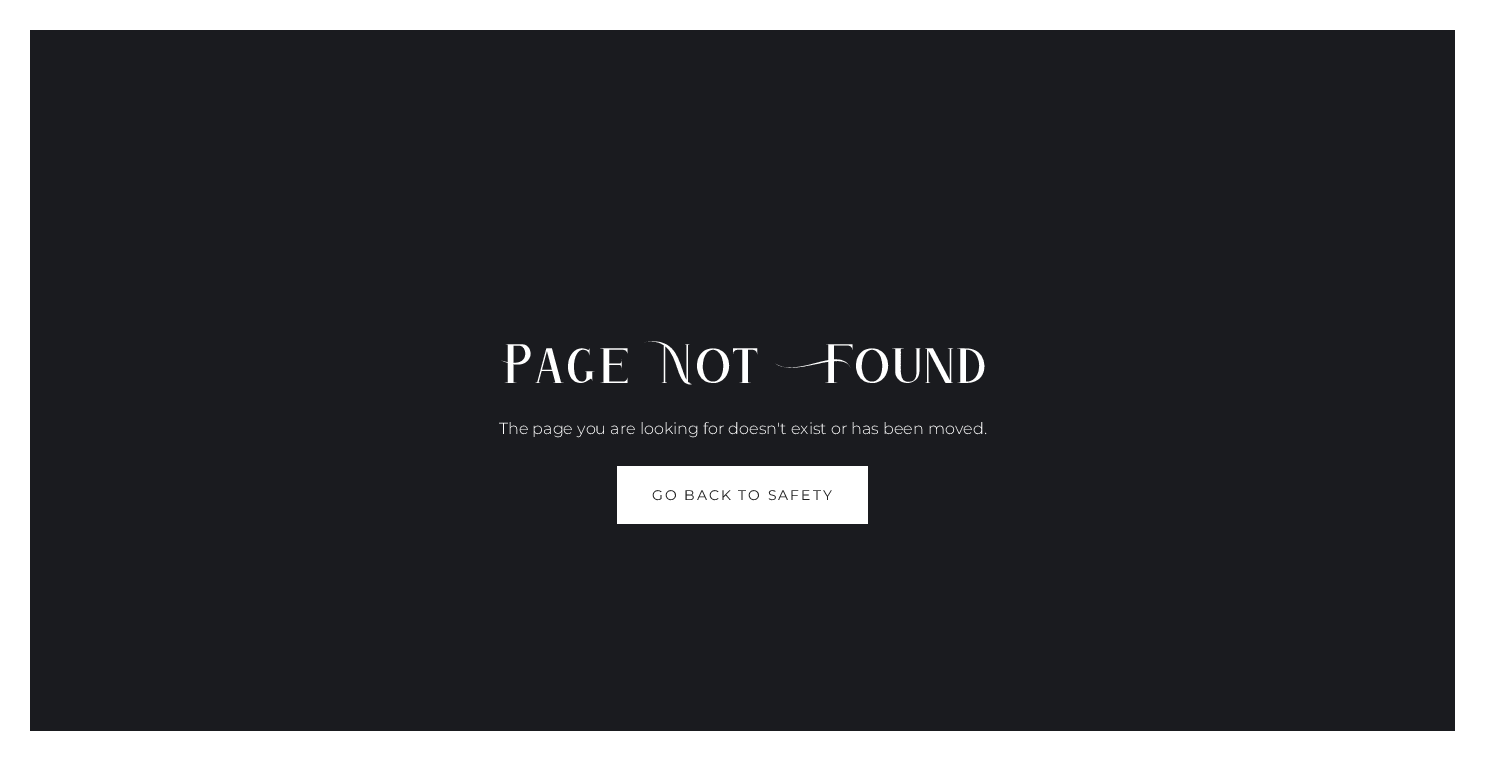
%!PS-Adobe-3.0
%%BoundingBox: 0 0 1485 761
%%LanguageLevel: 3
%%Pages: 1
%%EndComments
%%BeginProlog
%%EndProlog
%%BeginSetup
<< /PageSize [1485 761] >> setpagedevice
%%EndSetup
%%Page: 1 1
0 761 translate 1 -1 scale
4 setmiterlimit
1 setgray
0 0 1485 761 rectfill
0.102 0.106 0.122 setrgbcolor
30 30 1425 701 rectfill
1 setgray
617 466 251 58 rectfill
/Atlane-Regular [50 0 0 -50 0 0] selectfont
499 383 moveto (Page Not Found) show
/Montserrat-Light [16 0 0 -16 0 0] selectfont
499 434 moveto (The page you are looking for doesn't exist or has been moved.) show
/Montserrat-Regular [14 0 0 -14 0 0] selectfont
0.125 setgray
652 500 moveto 2 0 (GO BACK TO SAFETY) ashow
showpage
%%EOF
